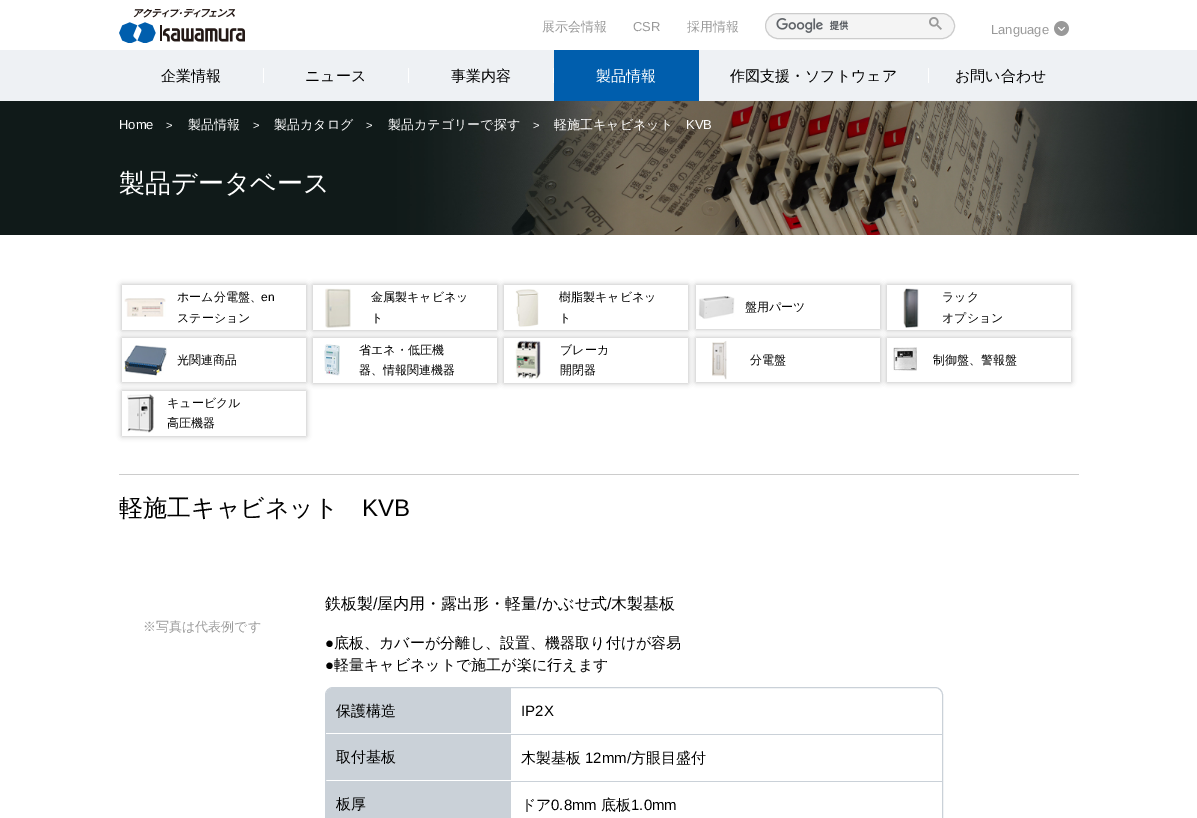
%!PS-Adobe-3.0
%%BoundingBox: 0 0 1197 818
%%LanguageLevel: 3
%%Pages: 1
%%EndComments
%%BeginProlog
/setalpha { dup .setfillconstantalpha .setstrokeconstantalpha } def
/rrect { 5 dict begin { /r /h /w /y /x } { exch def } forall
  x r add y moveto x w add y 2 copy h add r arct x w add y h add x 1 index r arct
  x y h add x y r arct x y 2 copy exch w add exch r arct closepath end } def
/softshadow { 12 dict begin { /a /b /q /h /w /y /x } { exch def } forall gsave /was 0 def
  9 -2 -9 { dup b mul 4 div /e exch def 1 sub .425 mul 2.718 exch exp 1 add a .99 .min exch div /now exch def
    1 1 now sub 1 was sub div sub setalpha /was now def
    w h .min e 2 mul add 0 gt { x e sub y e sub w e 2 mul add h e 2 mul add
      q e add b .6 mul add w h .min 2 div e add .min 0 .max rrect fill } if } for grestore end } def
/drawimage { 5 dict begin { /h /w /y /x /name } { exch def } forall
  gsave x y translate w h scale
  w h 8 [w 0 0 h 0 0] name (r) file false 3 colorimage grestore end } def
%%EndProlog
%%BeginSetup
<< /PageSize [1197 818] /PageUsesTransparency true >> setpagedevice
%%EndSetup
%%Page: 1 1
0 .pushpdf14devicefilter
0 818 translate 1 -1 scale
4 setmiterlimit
1 setgray
0 0 1197 818 rectfill
(images/1.raw) 119 9 126 34 drawimage
0.957 setgray
765.5 13.5 189 25 12.5 rrect gsave fill grestore
0.8 setgray
stroke
(images/2.raw) 776 18 73 15 drawimage
(images/3.raw) 929 17 13 13 drawimage
(images/4.raw) 1054 21 15 15 drawimage
0.933 0.945 0.957 setrgbcolor
0 50 1197 51 rectfill
1 setgray
263 68 1 15 rectfill
408 68 1 15 rectfill
553 68 1 15 rectfill
0 0.369 0.678 setrgbcolor
554 50 145 51 rectfill
1 setgray
928 68 1 15 rectfill
(images/5.raw) 0 101 1197 134 drawimage
gsave
newpath 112 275 moveto 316 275 lineto 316 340 lineto 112 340 lineto closepath 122 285 moveto 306 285 lineto 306 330 lineto 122 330 lineto closepath eoclip newpath
0 setgray
122 285 184 45 0 3 0.3 softshadow
grestore
(images/6.raw) 124 298 42 19 drawimage
gsave
newpath 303 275 moveto 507 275 lineto 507 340 lineto 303 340 lineto closepath 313 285 moveto 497 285 lineto 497 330 lineto 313 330 lineto closepath eoclip newpath
0 setgray
313 285 184 45 0 3 0.3 softshadow
grestore
(images/7.raw) 325 288 26 40 drawimage
gsave
newpath 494 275 moveto 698 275 lineto 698 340 lineto 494 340 lineto closepath 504 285 moveto 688 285 lineto 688 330 lineto 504 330 lineto closepath eoclip newpath
0 setgray
504 285 184 45 0 3 0.3 softshadow
grestore
(images/8.raw) 515 289 24 38 drawimage
gsave
newpath 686 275 moveto 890 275 lineto 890 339 lineto 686 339 lineto closepath 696 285 moveto 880 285 lineto 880 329 lineto 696 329 lineto closepath eoclip newpath
0 setgray
696 285 184 44 0 3 0.3 softshadow
grestore
(images/9.raw) 698 296 37 23 drawimage
gsave
newpath 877 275 moveto 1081 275 lineto 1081 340 lineto 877 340 lineto closepath 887 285 moveto 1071 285 lineto 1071 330 lineto 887 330 lineto closepath eoclip newpath
0 setgray
887 285 184 45 0 3 0.3 softshadow
grestore
(images/10.raw) 903 288 16 40 drawimage
gsave
newpath 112 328 moveto 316 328 lineto 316 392 lineto 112 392 lineto closepath 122 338 moveto 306 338 lineto 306 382 lineto 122 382 lineto closepath eoclip newpath
0 setgray
122 338 184 44 0 3 0.3 softshadow
grestore
(images/11.raw) 124 345 43 31 drawimage
gsave
newpath 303 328 moveto 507 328 lineto 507 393 lineto 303 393 lineto closepath 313 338 moveto 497 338 lineto 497 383 lineto 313 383 lineto closepath eoclip newpath
0 setgray
313 338 184 45 0 3 0.3 softshadow
grestore
(images/12.raw) 324 344 16 32 drawimage
gsave
newpath 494 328 moveto 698 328 lineto 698 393 lineto 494 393 lineto closepath 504 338 moveto 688 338 lineto 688 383 lineto 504 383 lineto closepath eoclip newpath
0 setgray
504 338 184 45 0 3 0.3 softshadow
grestore
(images/13.raw) 515 340 26 39 drawimage
gsave
newpath 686 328 moveto 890 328 lineto 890 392 lineto 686 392 lineto closepath 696 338 moveto 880 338 lineto 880 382 lineto 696 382 lineto closepath eoclip newpath
0 setgray
696 338 184 44 0 3 0.3 softshadow
grestore
(images/14.raw) 712 341 15 39 drawimage
gsave
newpath 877 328 moveto 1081 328 lineto 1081 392 lineto 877 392 lineto closepath 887 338 moveto 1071 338 lineto 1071 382 lineto 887 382 lineto closepath eoclip newpath
0 setgray
887 338 184 44 0 3 0.3 softshadow
grestore
(images/15.raw) 893 347 24 24 drawimage
gsave
newpath 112 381 moveto 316 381 lineto 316 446 lineto 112 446 lineto closepath 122 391 moveto 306 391 lineto 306 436 lineto 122 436 lineto closepath eoclip newpath
0 setgray
122 391 184 45 0 3 0.3 softshadow
grestore
(images/16.raw) 127 394 27 39 drawimage
0.8 setgray
119 474 960 1 rectfill
0.792 0.82 0.847 setrgbcolor
325.5 687.5 617 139 7.5 rrect stroke
newpath 333 688 moveto 511 688 lineto 511 734 lineto 326 734 lineto 326 695 lineto 326 691 329 688 333 688 curveto closepath fill
1 setgray
326 733 185 1 rectfill
0.792 0.82 0.847 setrgbcolor
326 734 185 46 rectfill
511 734 431 1 rectfill
326 781 185 37 rectfill
511 781 431 1 rectfill
/WenQuanYiZenHei-Medium [13 0 0 -13 0 0] selectfont
0.6 setgray
542 31 moveto (展示会情報) show
/LiberationSans-Regular [13 0 0 -13 0 0] selectfont
633 31 moveto (CSR) show
/WenQuanYiZenHei-Medium [13 0 0 -13 0 0] selectfont
687 31 moveto (採用情報) show
/LiberationSans-Regular [13 0 0 -13 0 0] selectfont
991 34 moveto (Language) show
/WenQuanYiZenHei-Medium [15 0 0 -15 0 0] selectfont
0 setgray
161 81 moveto (企業情報) show
305 81 moveto (ニュース) show
451 81 moveto (事業内容) show
1 setgray
596 81 moveto (製品情報) show
0 setgray
730 81 moveto (作図支援・ソフトウェア) show
955 81 moveto (お問い合わせ) show
/LiberationSans-Regular [13 0 0 -13 0 0] selectfont
1 setgray
119 129 moveto (Home) show
/LiberationSans-Regular [11 0 0 -11 0 0] selectfont
166 129 moveto (>) show
/WenQuanYiZenHei-Medium [13 0 0 -13 0 0] selectfont
188 129 moveto (製品情報) show
/LiberationSans-Regular [11 0 0 -11 0 0] selectfont
253 129 moveto (>) show
/WenQuanYiZenHei-Medium [13 0 0 -13 0 0] selectfont
274 129 moveto (製品カタログ) show
/LiberationSans-Regular [11 0 0 -11 0 0] selectfont
366 129 moveto (>) show
/WenQuanYiZenHei-Medium [13 0 0 -13 0 0] selectfont
388 129 moveto (製品カテゴリーで探す) show
/LiberationSans-Regular [11 0 0 -11 0 0] selectfont
533 129 moveto (>) show
/WenQuanYiZenHei-Medium [13 0 0 -13 0 0] selectfont
554 129 moveto (軽施工キャビネット) show
/LiberationSans-Regular [13 0 0 -13 0 0] selectfont
686 129 moveto (KVB) show
/WenQuanYiZenHei-Medium [26 0 0 -26 0 0] selectfont
119 192 moveto (製品データベース) show
/WenQuanYiZenHei-Medium [12 0 0 -12 0 0] selectfont
0 setgray
177 301 moveto (ホーム分電盤、) show
/LiberationSans-Regular [12 0 0 -12 0 0] selectfont
261 301 moveto (en) show
/WenQuanYiZenHei-Medium [12 0 0 -12 0 0] selectfont
177 322 moveto (ステーション) show
371 301 moveto (金属製キャビネッ) show
371 322 moveto (ト) show
559 301 moveto (樹脂製キャビネッ) show
559 322 moveto (ト) show
745 311 moveto (盤用パーツ) show
942 301 moveto (ラック) show
942 322 moveto (オプション) show
177 364 moveto (光関連商品) show
359 354 moveto (省エネ・低圧機) show
359 374 moveto (器、情報関連機器) show
560 354 moveto (ブレーカ) show
560 374 moveto (開閉器) show
750 364 moveto (分電盤) show
933 364 moveto (制御盤、警報盤) show
167 407 moveto (キュービクル) show
167 427 moveto (高圧機器) show
/WenQuanYiZenHei-Medium [24 0 0 -24 0 0] selectfont
119 516 moveto (軽施工キャビネット) show
/LiberationSans-Regular [24 0 0 -24 0 0] selectfont
362 516 moveto (KVB) show
/WenQuanYiZenHei-Medium [13 0 0 -13 0 0] selectfont
0.6 setgray
143 631 moveto (※写真は代表例です) show
/WenQuanYiZenHei-Medium [16 0 0 -16 0 0] selectfont
0 setgray
325 609 moveto (鉄板製) show
/LiberationSans-Regular [16 0 0 -16 0 0] selectfont
373 609 moveto (/) show
/WenQuanYiZenHei-Medium [16 0 0 -16 0 0] selectfont
377 609 moveto (屋内用・露出形・軽量) show
/LiberationSans-Regular [16 0 0 -16 0 0] selectfont
537 609 moveto (/) show
/WenQuanYiZenHei-Medium [16 0 0 -16 0 0] selectfont
542 609 moveto (かぶせ式) show
/LiberationSans-Regular [16 0 0 -16 0 0] selectfont
607 609 moveto (/) show
/WenQuanYiZenHei-Medium [16 0 0 -16 0 0] selectfont
611 609 moveto (木製基板) show
/LiberationSans-Regular [15 0 0 -15 0 0] selectfont
325 648 moveto (●) show
/WenQuanYiZenHei-Medium [15 0 0 -15 0 0] selectfont
334 648 moveto (底板、カバーが分離し、設置、機器取り付けが容易) show
/LiberationSans-Regular [15 0 0 -15 0 0] selectfont
325 670 moveto (●) show
/WenQuanYiZenHei-Medium [15 0 0 -15 0 0] selectfont
334 670 moveto (軽量キャビネットで施工が楽に行えます) show
336 716 moveto (保護構造) show
/LiberationSans-Regular [15 0 0 -15 0 0] selectfont
521 716 moveto (IP2X) show
/WenQuanYiZenHei-Medium [15 0 0 -15 0 0] selectfont
336 762 moveto (取付基板) show
521 763 moveto (木製基板) show
/LiberationSans-Regular [15 0 0 -15 0 0] selectfont
585 763 moveto (12mm/) show
/WenQuanYiZenHei-Medium [15 0 0 -15 0 0] selectfont
631 763 moveto (方眼目盛付) show
336 809 moveto (板厚) show
521 810 moveto (ドア) show
/LiberationSans-Regular [15 0 0 -15 0 0] selectfont
551 810 moveto (0.8mm) show
/WenQuanYiZenHei-Medium [15 0 0 -15 0 0] selectfont
601 810 moveto (底板) show
/LiberationSans-Regular [15 0 0 -15 0 0] selectfont
631 810 moveto (1.0mm) show
.poppdf14devicefilter showpage
%%EOF
